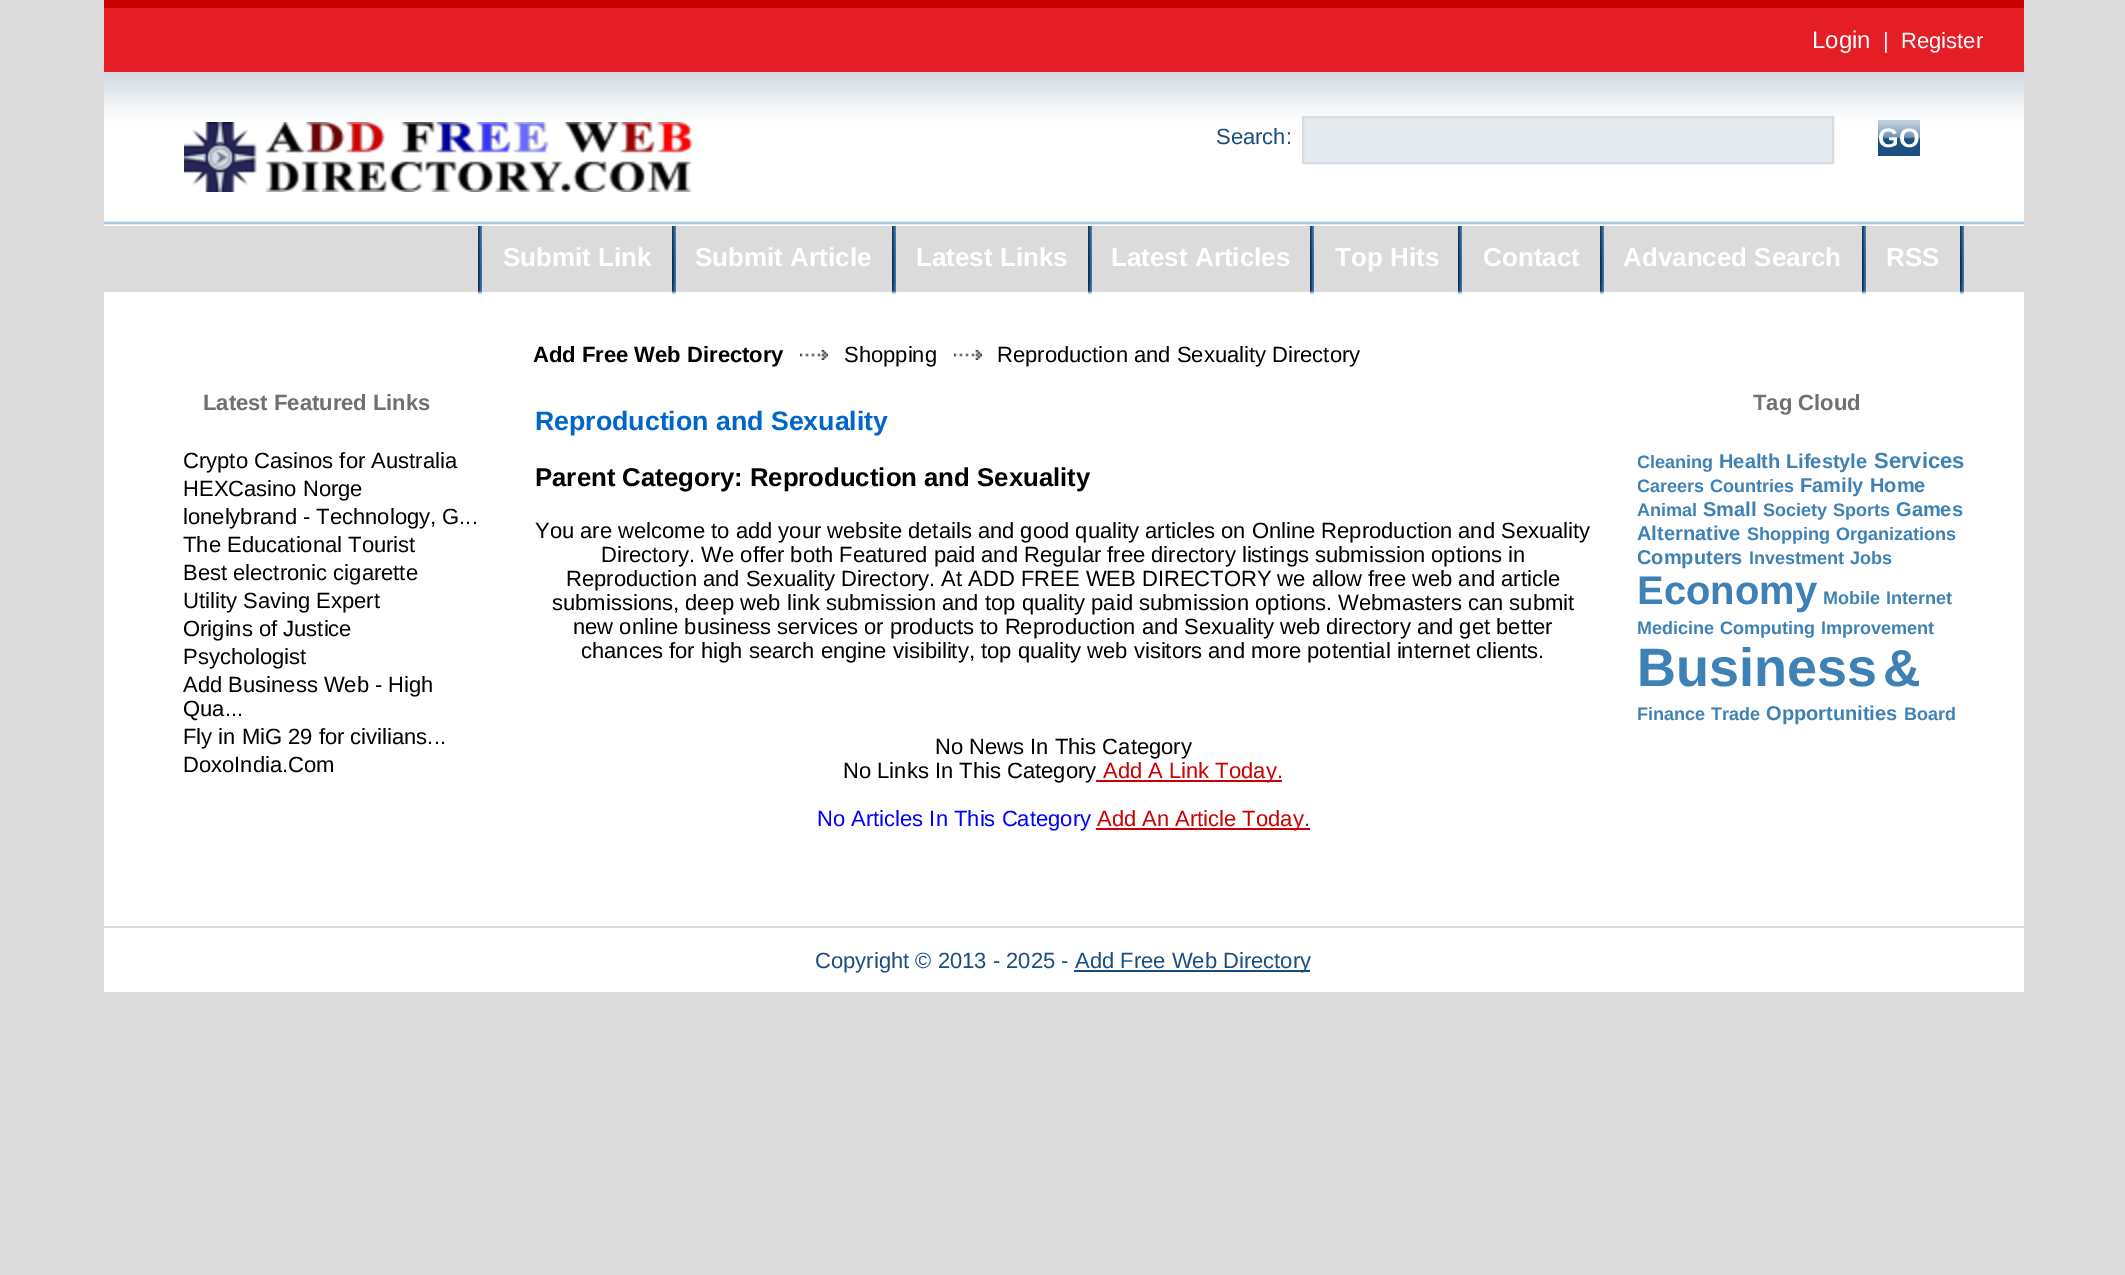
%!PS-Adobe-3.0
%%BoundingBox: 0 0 2125 1275
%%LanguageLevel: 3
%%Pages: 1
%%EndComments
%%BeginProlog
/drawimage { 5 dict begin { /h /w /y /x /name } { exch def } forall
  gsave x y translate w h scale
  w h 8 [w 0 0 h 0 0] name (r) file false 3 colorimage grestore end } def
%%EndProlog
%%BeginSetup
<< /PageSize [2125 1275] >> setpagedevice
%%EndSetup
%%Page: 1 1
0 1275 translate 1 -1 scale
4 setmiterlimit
0.863 0.859 0.859 setrgbcolor
0 0 2125 1275 rectfill
0.898 0.114 0.145 setrgbcolor
104 8 1920 64 rectfill
0.792 0 0.008 setrgbcolor
104 0 1920 8 rectfill
(images/1.raw) 104 72 1920 154 drawimage
(images/2.raw) 184 122 509 70 drawimage
0.898 0.918 0.933 setrgbcolor
newpath 1303 117 moveto 1833 117 lineto 1833 163 lineto 1303 163 lineto closepath gsave fill grestore
0.835 0.863 0.89 setrgbcolor
2 setlinewidth
stroke
(images/3.raw) 1878 120 42 36 drawimage
1 setgray
104 292 1920 634 rectfill
(images/4.raw) 478 226 4 68 drawimage
(images/4.raw) 672 226 4 68 drawimage
(images/4.raw) 892 226 4 68 drawimage
(images/4.raw) 1088 226 4 68 drawimage
(images/4.raw) 1310 226 4 68 drawimage
(images/4.raw) 1458 226 4 68 drawimage
(images/4.raw) 1600 226 4 68 drawimage
(images/4.raw) 1862 226 4 68 drawimage
(images/4.raw) 1960 226 4 68 drawimage
(images/5.raw) 800 350 28 10 drawimage
(images/5.raw) 954 350 28 10 drawimage
0.792 0 0.008 setrgbcolor
1096 828 214 2 rectfill
1 setgray
104 928 1920 64 rectfill
0.086 0.294 0.498 setrgbcolor
1074 970 236 2 rectfill
/LiberationSans-Regular [24 0 0 -24 0 0] selectfont
1 setgray
1812 48 moveto (Login) show
/LiberationSans-Regular [22 0 0 -22 0 0] selectfont
1883 48 moveto (|) show
1901 48 moveto (Register) show
0.102 0.306 0.502 setrgbcolor
1216 144 moveto (Search:) show
/LiberationSans-Bold [26.7 0 0 -26.7 0 0] selectfont
1 setgray
1878 147 moveto (GO) show
/LiberationSans-Bold [26 0 0 -26 0 0] selectfont
503 266 moveto (Submit Link) show
695 266 moveto (Submit Article) show
916 266 moveto (Latest Links) show
1111 266 moveto (Latest Articles) show
1335 266 moveto (Top Hits) show
1483 266 moveto (Contact) show
1623 266 moveto (Advanced Search) show
1886 266 moveto (RSS) show
/LiberationSans-Bold [22 0 0 -22 0 0] selectfont
0 setgray
533 362 moveto (Add Free Web Directory) show
/LiberationSans-Regular [22 0 0 -22 0 0] selectfont
844 362 moveto (Shopping) show
997 362 moveto (Reproduction and Sexuality Directory) show
/LiberationSans-Bold [22 0 0 -22 0 0] selectfont
0.439 setgray
203 410 moveto (Latest Featured Links) show
/LiberationSans-Regular [22 0 0 -22 0 0] selectfont
0 setgray
183 468 moveto (Crypto Casinos for Australia) show
183 496 moveto (HEXCasino Norge) show
183 524 moveto (lonelybrand - Technology, G...) show
183 552 moveto (The Educational Tourist) show
183 580 moveto (Best electronic cigarette) show
183 608 moveto (Utility Saving Expert) show
183 636 moveto (Origins of Justice) show
183 664 moveto (Psychologist) show
183 692 moveto (Add Business Web - High) show
183 716 moveto (Qua...) show
183 744 moveto (Fly in MiG 29 for civilians...) show
183 772 moveto (DoxoIndia.Com) show
/LiberationSans-Bold [26.7 0 0 -26.7 0 0] selectfont
0 0.4 0.8 setrgbcolor
535 430 moveto (Reproduction and Sexuality) show
/LiberationSans-Bold [25.75 0 0 -25.75 0 0] selectfont
0 setgray
535 486 moveto (Parent Category: Reproduction and Sexuality) show
/LiberationSans-Regular [22 0 0 -22 0 0] selectfont
535 538 moveto (You are welcome to add your website details and good quality articles on Online Reproduction and Sexuality) show
601 562 moveto (Directory. We offer both Featured paid and Regular free directory listings submission options in) show
566 586 moveto (Reproduction and Sexuality Directory. At ADD FREE WEB DIRECTORY we allow free web and article) show
552 610 moveto (submissions, deep web link submission and top quality paid submission options. Webmasters can submit) show
573 634 moveto (new online business services or products to Reproduction and Sexuality web directory and get better) show
581 658 moveto (chances for high search engine visibility, top quality web visitors and more potential internet clients.) show
935 754 moveto (No News In This Category) show
843 778 moveto (No Links In This Category) show
0.792 0 0.008 setrgbcolor
1096 780 186 2 rectfill
1103 778 moveto (Add A Link Today.) show
0 0 1 setrgbcolor
817 826 moveto (No Articles In This Category) show
0.792 0 0.008 setrgbcolor
1097 826 moveto (Add An Article Today.) show
/LiberationSans-Bold [22 0 0 -22 0 0] selectfont
0.439 setgray
1753 410 moveto (Tag Cloud) show
gsave
1638 428 340 316 rectclip
/LiberationSans-Bold [18 0 0 -18 0 0] selectfont
0.243 0.506 0.706 setrgbcolor
1637 468 moveto (Cleaning) show
grestore
/LiberationSans-Bold [20 0 0 -20 0 0] selectfont
0.243 0.506 0.706 setrgbcolor
1719 468 moveto (Health) show
1786 468 moveto (Lifestyle) show
/LiberationSans-Bold [22 0 0 -22 0 0] selectfont
1874 468 moveto (Services) show
gsave
1638 428 340 316 rectclip
/LiberationSans-Bold [18 0 0 -18 0 0] selectfont
1637 492 moveto (Careers) show
grestore
/LiberationSans-Bold [18 0 0 -18 0 0] selectfont
1710 492 moveto (Countries) show
/LiberationSans-Bold [20 0 0 -20 0 0] selectfont
1800 492 moveto (Family) show
1870 492 moveto (Home) show
/LiberationSans-Bold [18 0 0 -18 0 0] selectfont
1637 516 moveto (Animal) show
/LiberationSans-Bold [20 0 0 -20 0 0] selectfont
1703 516 moveto (Small) show
/LiberationSans-Bold [18 0 0 -18 0 0] selectfont
1763 516 moveto (Society) show
1833 516 moveto (Sports) show
/LiberationSans-Bold [20 0 0 -20 0 0] selectfont
1896 516 moveto (Games) show
1637 540 moveto (Alternative) show
/LiberationSans-Bold [18 0 0 -18 0 0] selectfont
1747 540 moveto (Shopping) show
1836 540 moveto (Organizations) show
gsave
1638 428 340 316 rectclip
/LiberationSans-Bold [20 0 0 -20 0 0] selectfont
1637 564 moveto (Computers) show
grestore
1749 564 moveto (Investment) show
1850 564 moveto (Jobs) show
/LiberationSans-Bold [40 0 0 -40 0 0] selectfont
1637 604 moveto (Economy) show
/LiberationSans-Bold [18 0 0 -18 0 0] selectfont
1823 604 moveto (Mobile) show
1886 604 moveto (Internet) show
1637 634 moveto (Medicine) show
1720 634 moveto (Computing) show
1821 634 moveto (Improvement) show
/LiberationSans-Bold [54 0 0 -54 0 0] selectfont
1637 686 moveto (Business) show
/LiberationSans-Bold [52 0 0 -52 0 0] selectfont
1883 686 moveto (&) show
/LiberationSans-Bold [18 0 0 -18 0 0] selectfont
1637 720 moveto (Finance) show
1711 720 moveto (Trade) show
/LiberationSans-Bold [20 0 0 -20 0 0] selectfont
1766 720 moveto (Opportunities) show
/LiberationSans-Bold [18 0 0 -18 0 0] selectfont
1904 720 moveto (Board) show
/LiberationSans-Regular [22 0 0 -22 0 0] selectfont
0.102 0.306 0.502 setrgbcolor
815 968 moveto (Copyright © 2013 - 2025 -) show
1075 968 moveto (Add Free Web Directory) show
showpage
%%EOF
